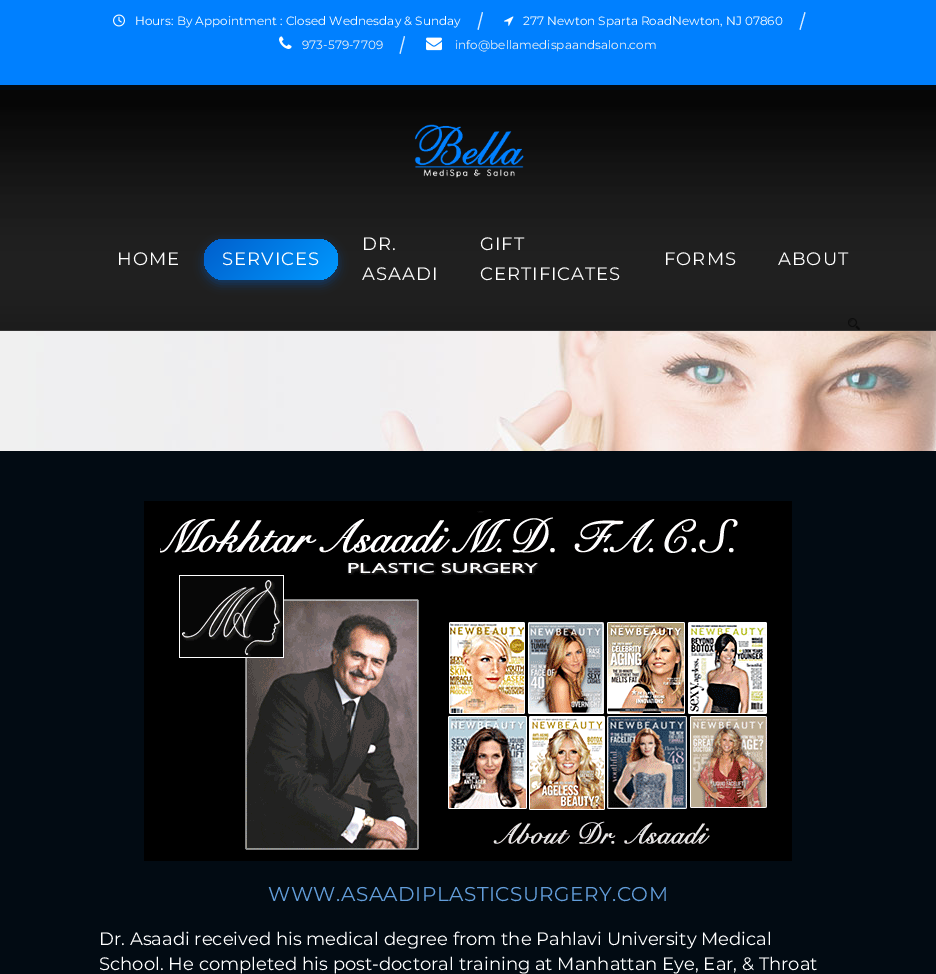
%!PS-Adobe-3.0
%%BoundingBox: 0 0 936 974
%%LanguageLevel: 3
%%Pages: 1
%%EndComments
%%BeginProlog
/setalpha { dup .setfillconstantalpha .setstrokeconstantalpha } def
/rrect { 5 dict begin { /r /h /w /y /x } { exch def } forall
  x r add y moveto x w add y 2 copy h add r arct x w add y h add x 1 index r arct
  x y h add x y r arct x y 2 copy exch w add exch r arct closepath end } def
/softshadow { 12 dict begin { /a /b /q /h /w /y /x } { exch def } forall gsave /was 0 def
  9 -2 -9 { dup b mul 4 div /e exch def 1 sub .425 mul 2.718 exch exp 1 add a .99 .min exch div /now exch def
    1 1 now sub 1 was sub div sub setalpha /was now def
    w h .min e 2 mul add 0 gt { x e sub y e sub w e 2 mul add h e 2 mul add
      q e add b .6 mul add w h .min 2 div e add .min 0 .max rrect fill } if } for grestore end } def
/drawimage { 5 dict begin { /h /w /y /x /name } { exch def } forall
  gsave x y translate w h scale
  w h 8 [w 0 0 h 0 0] name (r) file false 3 colorimage grestore end } def
%%EndProlog
%%BeginSetup
<< /PageSize [936 974] /PageUsesTransparency true >> setpagedevice
%%EndSetup
%%Page: 1 1
0 .pushpdf14devicefilter
0 974 translate 1 -1 scale
4 setmiterlimit
0.008 0.043 0.075 setrgbcolor
0 0 936 974 rectfill
0 0.502 1 setrgbcolor
0 0 936 85 rectfill
(images/1.raw) 113 14 12 13 drawimage
0.851 0.925 1 setrgbcolor
newpath 482 12 moveto 483 12.5 lineto 478.5 30 lineto 477.5 29.5 lineto closepath fill
(images/2.raw) 504 16 10 10 drawimage
newpath 804.5 12 moveto 805.5 12.5 lineto 800.5 30 lineto 799.5 29.5 lineto closepath fill
(images/3.raw) 279 36 13 13 drawimage
newpath 404 36 moveto 405 36.5 lineto 400.5 54 lineto 399.5 53.5 lineto closepath fill
(images/4.raw) 426 37 16 14 drawimage
(images/5.raw) 0 90 936 240 drawimage
0.2 setgray
0 330 936 1 rectfill
(images/6.raw) 414 124 110 54 drawimage
0 0.392 0.863 setrgbcolor
204 243 134 41 20.5 5 0.4 softshadow
gsave 204 239 134 41 20.5 rrect clip newpath
<< /ShadingType 2 /ColorSpace /DeviceRGB /Coords [227 216 315 303] /Extend [true true] /Function << /FunctionType 2 /Domain [0 1] /C0 [0 0.373 0.8] /C1 [0 0.6 1] /N 1 >> >> shfill grestore
(images/7.raw) 848 318 12 12 drawimage
(images/8.raw) 0 331 936 120 drawimage
(images/9.raw) 144 501 648 360 drawimage
/Montserrat-Regular [12 0 0 -12 0 0] selectfont
1 setgray
135 25 moveto (Hours: By Appointment : Closed Wednesday & Sunday) show
523 25 moveto (277 Newton Sparta RoadNewton, NJ 07860) show
0.953 setgray
302 49 moveto (973-579-7709) show
455 49 moveto (info@bellamedispaandsalon.com) show
/Montserrat-Regular [18 0 0 -18 0 0] selectfont
1 setgray
117 265 moveto 1 0 (HOME) ashow
222 265 moveto 1 0 (SERVICES) ashow
362 250 moveto 1 0 (DR.) ashow
362 280 moveto 1 0 (ASAADI) ashow
480 250 moveto 1 0 (GIFT) ashow
480 280 moveto 1 0 (CERTIFICATES) ashow
664 265 moveto 1 0 (FORMS) ashow
778 265 moveto 1 0 (ABOUT) ashow
/Montserrat-Regular [20 0 0 -20 0 0] selectfont
0.388 0.62 0.859 setrgbcolor
268 901 moveto 0.5 0 (WWW.ASAADIPLASTICSURGERY.COM) ashow
/Montserrat-Regular [18 0 0 -18 0 0] selectfont
1 setgray
99 945 moveto (Dr. Asaadi received his medical degree from the Pahlavi University Medical) show
99 970 moveto (School. He completed his post-doctoral training at Manhattan Eye, Ear, & Throat) show
.poppdf14devicefilter showpage
%%EOF
